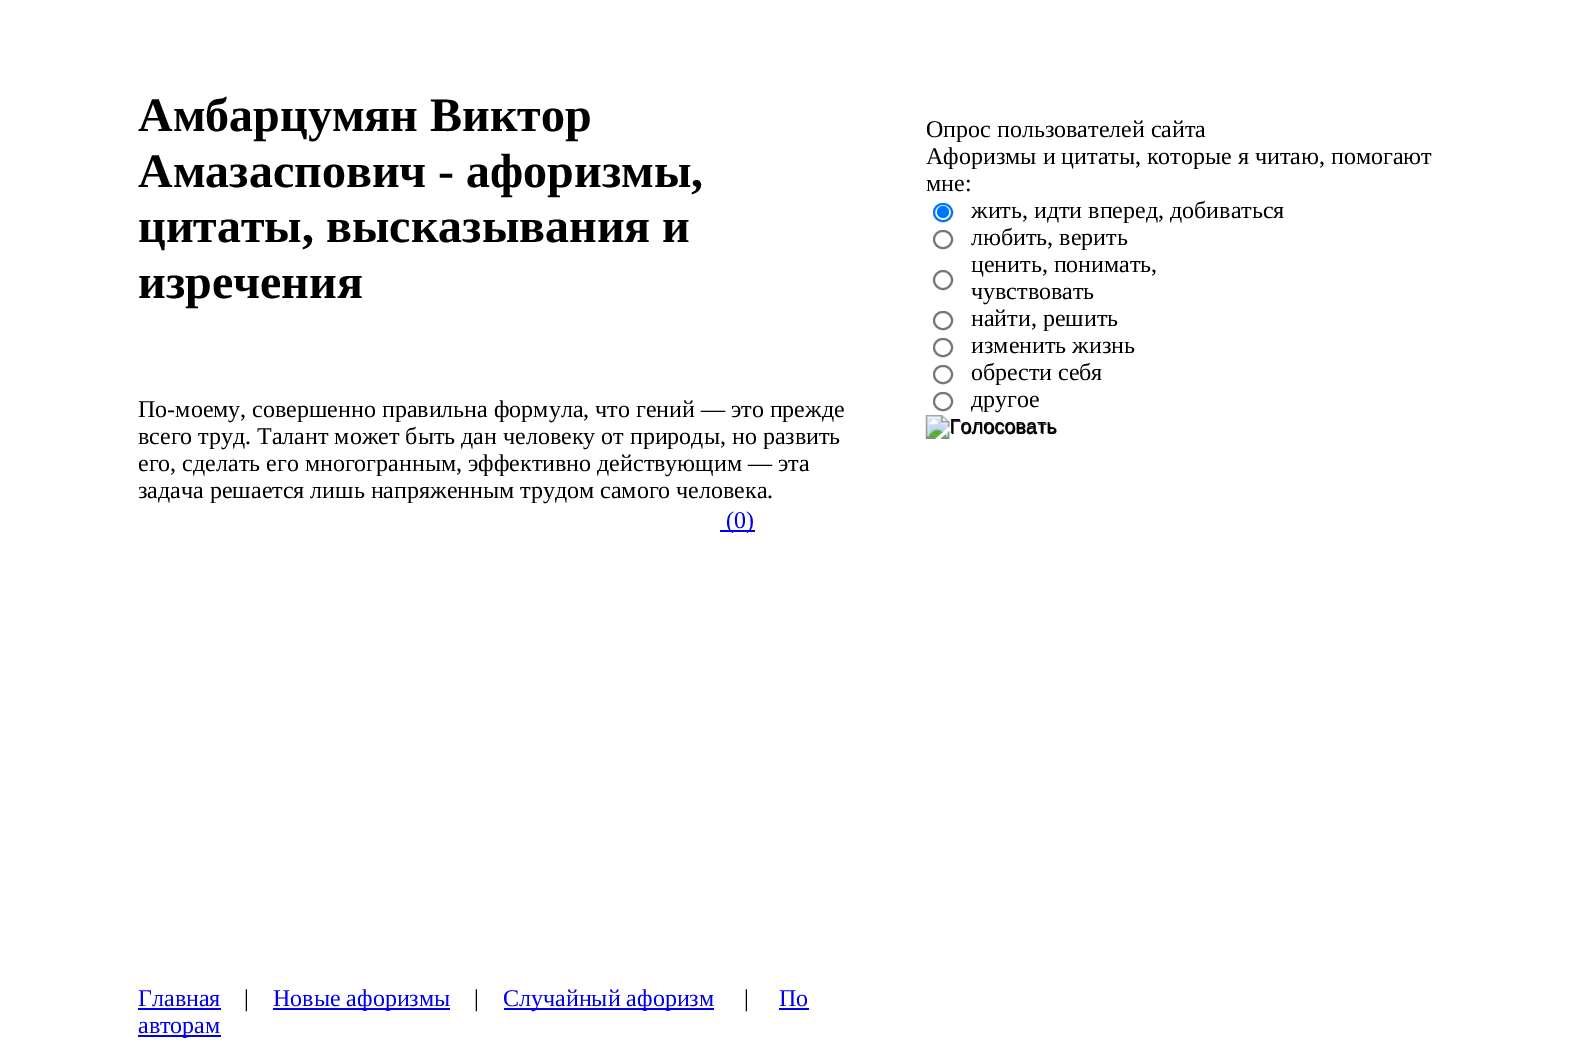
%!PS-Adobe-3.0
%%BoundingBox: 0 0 1581 1052
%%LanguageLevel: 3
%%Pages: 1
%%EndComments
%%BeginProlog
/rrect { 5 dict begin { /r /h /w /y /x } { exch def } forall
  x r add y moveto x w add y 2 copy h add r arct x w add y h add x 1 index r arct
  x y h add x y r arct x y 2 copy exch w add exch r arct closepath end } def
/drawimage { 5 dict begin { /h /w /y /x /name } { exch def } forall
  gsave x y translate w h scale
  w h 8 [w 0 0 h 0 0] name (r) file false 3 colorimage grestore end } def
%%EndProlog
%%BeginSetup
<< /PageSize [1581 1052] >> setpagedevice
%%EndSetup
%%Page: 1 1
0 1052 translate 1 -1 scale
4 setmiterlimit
1 setgray
0 0 1581 1052 rectfill
0 0 0.933 setrgbcolor
720 530 35 2 rectfill
138 1008 83 2 rectfill
273 1008 177 2 rectfill
504 1008 210 2 rectfill
779 1008 30 2 rectfill
138 1035 83 2 rectfill
0 0.459 1 setrgbcolor
2 setlinewidth
934 204 18 17 8.5 rrect stroke
newpath 943 212 6 0 360 arc closepath fill
0.463 setgray
934 231 18 17 8.5 rrect stroke
newpath 943 280 9 0 360 arc closepath stroke
934 312 18 17 8.5 rrect stroke
934 339 18 17 8.5 rrect stroke
934 366 18 17 8.5 rrect stroke
934 393 18 17 8.5 rrect stroke
(images/1.raw) 925 415 131 24 drawimage
/LiberationSerif-Bold [48 0 0 -48 0 0] selectfont
0 setgray
138 131 moveto (Амбарцумян Виктор) show
138 187 moveto (Амазаспович - афоризмы,) show
138 242 moveto (цитаты, высказывания и) show
138 298 moveto (изречения) show
/LiberationSerif-Regular [24 0 0 -24 0 0] selectfont
138 417 moveto (По-моему, совершенно правильна формула, что гений — это прежде) show
138 444 moveto (всего труд. Талант может быть дан человеку от природы, но развить) show
138 471 moveto (его, сделать его многогранным, эффективно действующим — эта) show
138 498 moveto (задача решается лишь напряженным трудом самого человека.) show
0 0 0.933 setrgbcolor
726 528 moveto (\(0\)) show
138 1006 moveto (Главная) show
0 setgray
244 1006 moveto (|) show
0 0 0.933 setrgbcolor
273 1006 moveto (Новые афоризмы) show
0 setgray
474 1006 moveto (|) show
0 0 0.933 setrgbcolor
503 1006 moveto (Случайный афоризм) show
0 setgray
744 1006 moveto (|) show
0 0 0.933 setrgbcolor
779 1006 moveto (По) show
138 1033 moveto (авторам) show
0 setgray
926 137 moveto (Опрос пользователей сайта) show
926 164 moveto (Афоризмы и цитаты, которые я читаю, помогают) show
926 191 moveto (мне:) show
971 218 moveto (жить, идти вперед, добиваться) show
971 245 moveto (любить, верить) show
971 272 moveto (ценить, понимать,) show
971 299 moveto (чувствовать) show
971 326 moveto (найти, решить) show
971 353 moveto (изменить жизнь) show
971 380 moveto (обрести себя) show
971 407 moveto (другое) show
/LiberationSans-Regular [20 0 0 -20 0 0] selectfont
950 434 moveto (Голосовать) show
showpage
%%EOF
